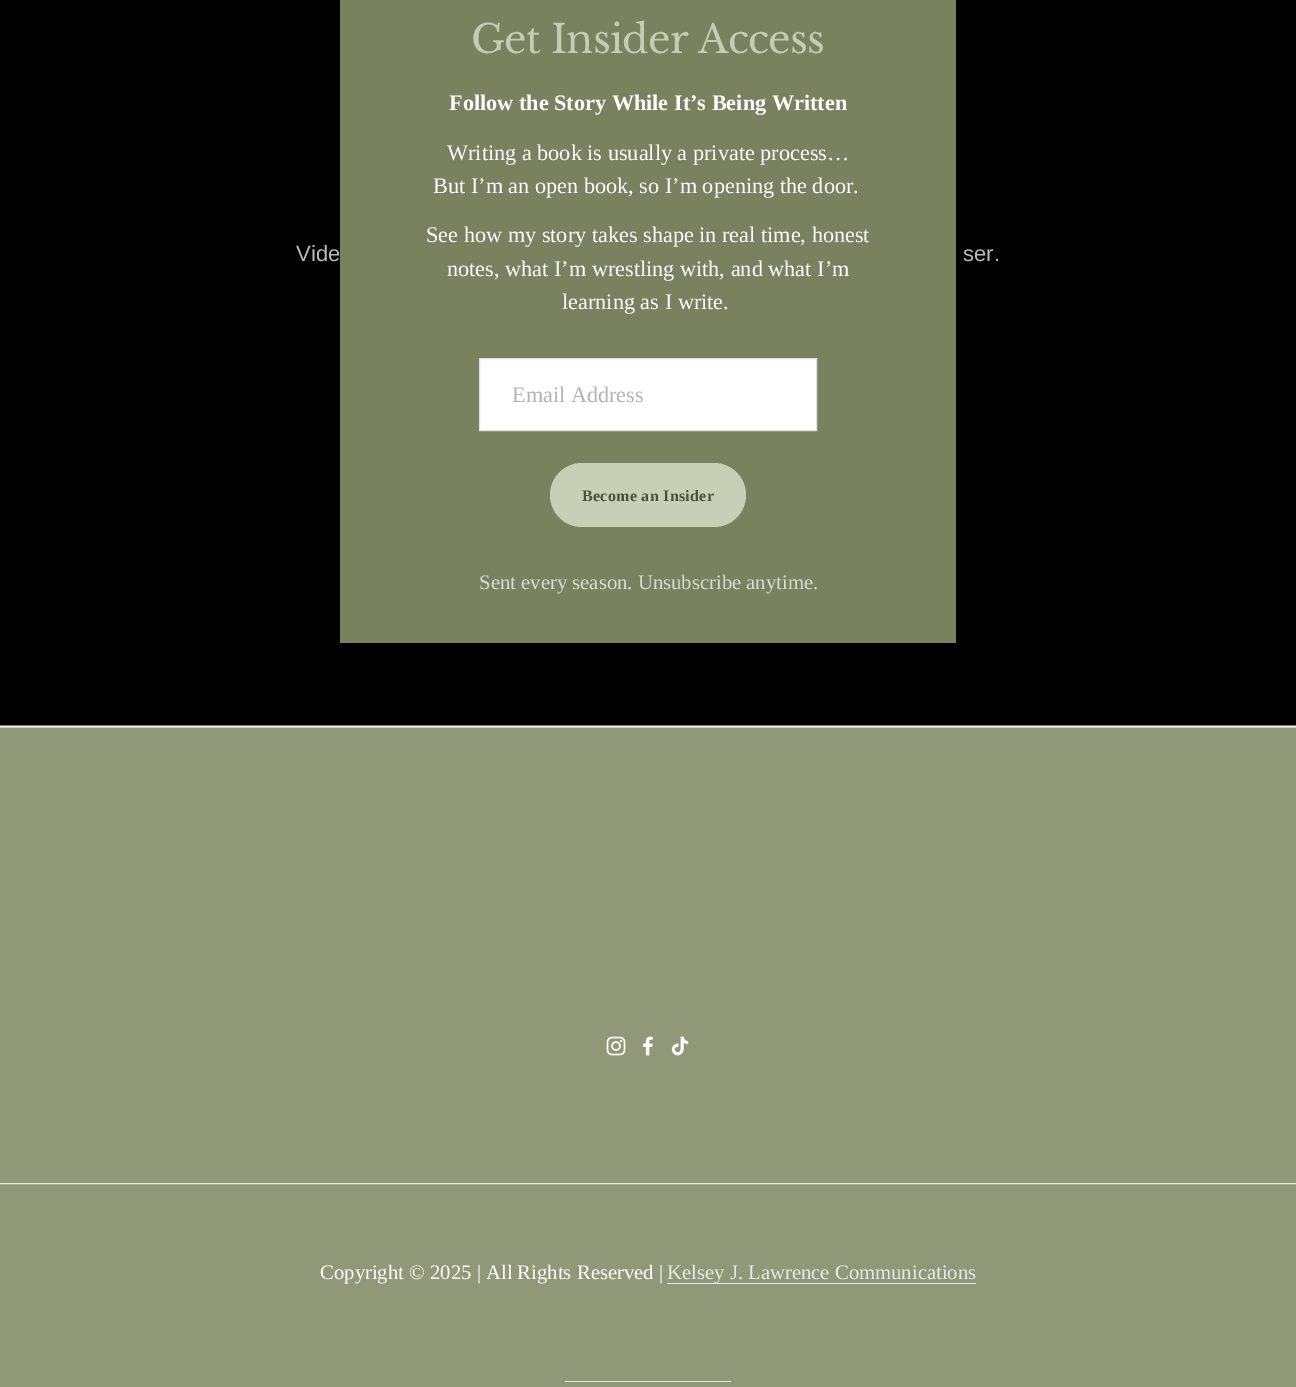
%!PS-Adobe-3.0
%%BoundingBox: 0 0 1296 1387
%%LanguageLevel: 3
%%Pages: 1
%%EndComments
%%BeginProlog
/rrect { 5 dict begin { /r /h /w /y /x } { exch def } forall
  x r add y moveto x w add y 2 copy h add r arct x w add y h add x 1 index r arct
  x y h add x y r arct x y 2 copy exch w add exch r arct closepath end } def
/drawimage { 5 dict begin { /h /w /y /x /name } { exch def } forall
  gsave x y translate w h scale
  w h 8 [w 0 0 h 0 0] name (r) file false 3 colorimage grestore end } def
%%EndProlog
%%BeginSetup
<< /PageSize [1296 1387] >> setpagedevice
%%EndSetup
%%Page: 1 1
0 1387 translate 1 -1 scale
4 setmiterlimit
0.569 0.596 0.471 setrgbcolor
0 0 1296 1387 rectfill
0 setgray
0 0 1296 726 rectfill
0.475 0.506 0.373 setrgbcolor
340 0 616 643 rectfill
1 setgray
newpath 479.5 358.5 moveto 816.5 358.5 lineto 816.5 430.5 lineto 479.5 430.5 lineto closepath gsave fill grestore
0.878 setgray
stroke
0.788 0.808 0.714 setrgbcolor
550 463 196 64 32 rrect fill
0.91 setgray
2 setlinewidth
2 setlinecap
newpath -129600 253.5 moveto -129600 1199 lineto 0 726.5 moveto 1296 726.5 lineto stroke
(images/1.raw) 606 1036 20 20 drawimage
(images/2.raw) 643 1036 10 20 drawimage
(images/3.raw) 671 1036 18 20 drawimage
1 setlinewidth
newpath -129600 955 moveto -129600 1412.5 lineto 0 1183.5 moveto 1296 1183.5 lineto stroke
667 1283 309 1 rectfill
565 1381 166 1 rectfill
/LibreBaskerville-Regular [39.25 0 0 -39.25 0 0] selectfont
0.776 0.796 0.702 setrgbcolor
471 53 moveto -0.75 0 (Get Insider Access) ashow
/LiberationSerif-Bold [22.25 0 0 -22.25 0 0] selectfont
1 setgray
449 110 moveto (Follow the Story While It’s Being Written) show
/LiberationSerif-Regular [22.25 0 0 -22.25 0 0] selectfont
447 160 moveto (Writing a book is usually a private process…) show
433 193 moveto (But I’m an open book, so I’m opening the door.) show
426 242 moveto (See how my story takes shape in real time, honest) show
447 276 moveto (notes, what I’m wrestling with, and what I’m) show
562 309 moveto (learning as I write.) show
0.702 setgray
512 402 moveto (Email Address) show
/LiberationSerif-Bold [16 0 0 -16 0 0] selectfont
0.298 0.318 0.224 setrgbcolor
582 501 moveto 0.3 0 (Become an Insider) ashow
/LiberationSerif-Regular [20.7 0 0 -20.7 0 0] selectfont
0.851 0.863 0.824 setrgbcolor
479 589 moveto (Sent every season. Unsubscribe anytime.) show
/LiberationSans-Regular [22 0 0 -22 0 0] selectfont
0.729 setgray
296 261 moveto (Vide) show
963 261 moveto (ser.) show
/LiberationSerif-Regular [20.7 0 0 -20.7 0 0] selectfont
1 setgray
320 1279 moveto (Copyright © 2025 | All Rights Reserved |) show
0.91 setgray
667 1279 moveto (Kelsey J. Lawrence Communications) show
showpage
%%EOF
